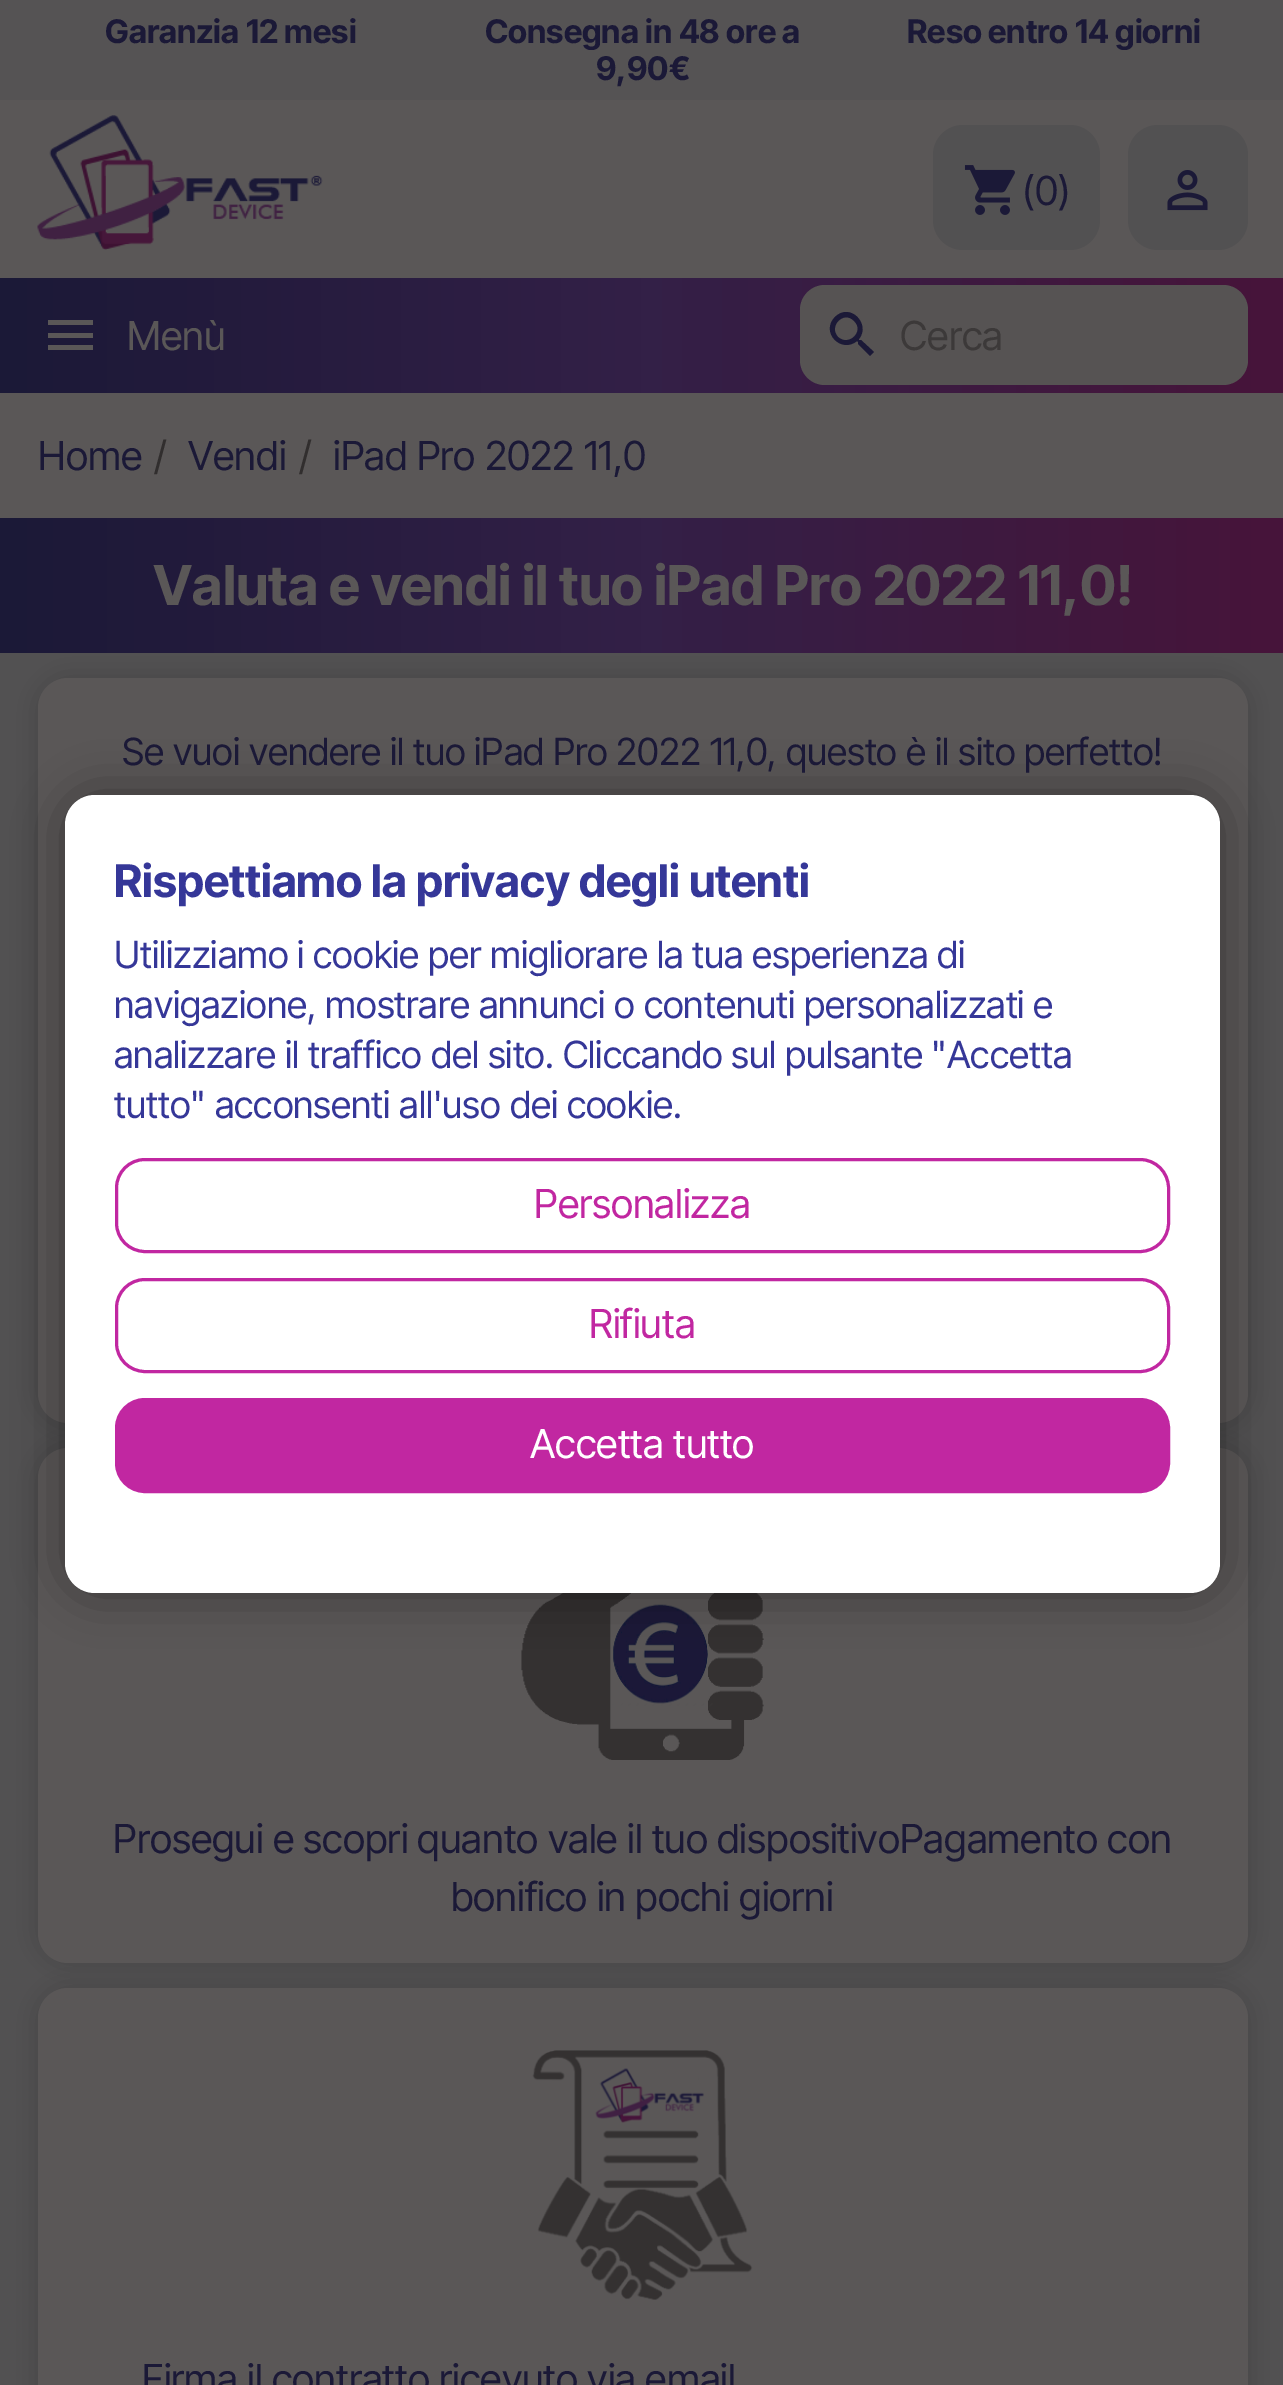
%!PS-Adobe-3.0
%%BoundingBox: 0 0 1283 2385
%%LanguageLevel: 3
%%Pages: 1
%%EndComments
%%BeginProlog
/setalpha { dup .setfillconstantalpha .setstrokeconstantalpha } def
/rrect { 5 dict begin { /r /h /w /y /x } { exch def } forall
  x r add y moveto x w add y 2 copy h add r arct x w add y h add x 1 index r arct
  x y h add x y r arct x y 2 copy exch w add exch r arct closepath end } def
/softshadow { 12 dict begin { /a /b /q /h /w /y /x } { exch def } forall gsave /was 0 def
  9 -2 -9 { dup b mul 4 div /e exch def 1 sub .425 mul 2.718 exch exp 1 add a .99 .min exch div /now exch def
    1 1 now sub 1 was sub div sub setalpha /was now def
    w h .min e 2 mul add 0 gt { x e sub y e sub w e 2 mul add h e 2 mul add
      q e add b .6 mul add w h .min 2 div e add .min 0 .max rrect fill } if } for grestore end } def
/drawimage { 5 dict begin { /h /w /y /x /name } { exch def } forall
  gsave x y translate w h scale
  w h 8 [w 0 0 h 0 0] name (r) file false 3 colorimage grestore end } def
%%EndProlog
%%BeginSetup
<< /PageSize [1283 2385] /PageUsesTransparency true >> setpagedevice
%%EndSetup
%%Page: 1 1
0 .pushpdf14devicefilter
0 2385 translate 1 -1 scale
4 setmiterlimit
0.322 0.318 0.322 setrgbcolor
0 0 1283 2385 rectfill
0.333 0.325 0.329 setrgbcolor
0 0 1283 100 rectfill
0.353 0.341 0.341 setrgbcolor
0 100 1283 178 rectfill
(images/1.raw) 37 115 286 135 drawimage
0.322 0.318 0.322 setrgbcolor
933 125 167 125 30 rrect fill
(images/2.raw) 964 165 51 50 drawimage
1128 125 120 125 30 rrect fill
(images/3.raw) 1167 170 41 41 drawimage
gsave newpath 0 278 moveto 1283 278 lineto 1283 393 lineto 0 393 lineto closepath clip newpath
<< /ShadingType 2 /ColorSpace /DeviceRGB /Coords [0 335 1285 335] /Extend [true true] /Function << /FunctionType 3 /Domain [0 1] /Functions [<< /FunctionType 2 /Domain [0 1] /C0 [0.106 0.098 0.216] /C1 [0.2 0.125 0.278] /N 1 >> << /FunctionType 2 /Domain [0 1] /C0 [0.2 0.125 0.278] /C1 [0.278 0.078 0.227] /N 1 >>] /Bounds [0.5] /Encode [0 1 0 1] >> >> shfill grestore
0.353 0.341 0.341 setrgbcolor
48 320 45 5 rectfill
48 333 45 5 rectfill
48 345 45 5 rectfill
0.337 0.325 0.325 setrgbcolor
800 285 448 100 25 rrect fill
0.106 0.098 0.216 setrgbcolor
newpath 838 337 moveto 849 347 865 331 854 321 curveto 844 310 828 326 838 337 curveto closepath 861 340 moveto 874 352 lineto 870 356 lineto 858 344 lineto 858 342 lineto 857 341 lineto 841 354 820 332 835 317 curveto 850 302 871 324 859 339 curveto 859 340 lineto closepath fill
0.353 0.341 0.341 setrgbcolor
0 393 1283 125 rectfill
gsave newpath 0 518 moveto 1283 518 lineto 1283 653 lineto 0 653 lineto closepath clip newpath
<< /ShadingType 2 /ColorSpace /DeviceRGB /Coords [0 585 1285 585] /Extend [true true] /Function << /FunctionType 3 /Domain [0 1] /Functions [<< /FunctionType 2 /Domain [0 1] /C0 [0.106 0.098 0.216] /C1 [0.2 0.125 0.278] /N 1 >> << /FunctionType 2 /Domain [0 1] /C0 [0.2 0.125 0.278] /C1 [0.278 0.078 0.227] /N 1 >>] /Bounds [0.5] /Encode [0 1 0 1] >> >> shfill grestore
0.043 0.031 0.031 setrgbcolor
38 678 1210 745 30 12.5 0.15 softshadow
0.353 0.341 0.341 setrgbcolor
38 678 1210 745 30 rrect fill
0.043 0.031 0.031 setrgbcolor
38 1448 1210 515 30 12.5 0.15 softshadow
0.353 0.341 0.341 setrgbcolor
38 1448 1210 515 30 rrect fill
(images/4.raw) 521 1593 243 167 drawimage
0.043 0.031 0.031 setrgbcolor
38 1988 1210 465 30 12.5 0.15 softshadow
0.353 0.341 0.341 setrgbcolor
38 1988 1210 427 30 rrect fill
(images/5.raw) 532 2050 221 250 drawimage
0 setgray
65 795 1155 798 30 25 0.4 softshadow
1 setgray
65 795 1155 798 30 rrect fill
0.757 0.153 0.631 setrgbcolor
3 setlinewidth
116.5 1159.5 1052 92 28.5 rrect stroke
116.5 1279.5 1052 92 28.5 rrect stroke
116.5 1399.5 1052 92 28.5 rrect gsave fill grestore
stroke
/InterTight-Bold [32.5 0 0 -32.5 0 0] selectfont
0.106 0.098 0.216 setrgbcolor
105 43 moveto (Garanzia 12 mesi) show
485 43 moveto (Consegna in 48 ore a) show
596 80 moveto (9,90€) show
907 43 moveto (Reso entro 14 giorni) show
/InterTight-Regular [40 0 0 -40 0 0] selectfont
1022 205 moveto (\(0\)) show
0.353 0.341 0.341 setrgbcolor
127 350 moveto (Menù) show
0.235 0.224 0.224 setrgbcolor
900 350 moveto (Cerca) show
0.106 0.098 0.216 setrgbcolor
38 470 moveto (Home) show
0.192 0.18 0.18 setrgbcolor
154 470 moveto (/) show
0.106 0.098 0.216 setrgbcolor
188 470 moveto (Vendi) show
0.192 0.18 0.18 setrgbcolor
299 470 moveto (/) show
0.106 0.098 0.216 setrgbcolor
333 470 moveto (iPad Pro 2022 11,0) show
/InterTight-Bold [55 0 0 -55 0 0] selectfont
0.353 0.341 0.341 setrgbcolor
153 605 moveto (Valuta e vendi il tuo iPad Pro 2022 11,0!) show
/InterTight-Regular [37.5 0 0 -37.5 0 0] selectfont
0.106 0.098 0.216 setrgbcolor
122 765 moveto (Se vuoi vendere il tuo iPad Pro 2022 11,0, questo è il sito perfetto!) show
/InterTight-Regular [40 0 0 -40 0 0] selectfont
113 1853 moveto (Prosegui e scopri quanto vale il tuo dispositivoPagamento con) show
451 1911 moveto (bonifico in pochi giorni) show
142 2393 moveto (Firma il contratto ricevuto via email) show
/InterTight-Bold [45 0 0 -45 0 0] selectfont
0.208 0.216 0.596 setrgbcolor
114 897 moveto (Rispettiamo la privacy degli utenti) show
/InterTight-Regular [37.5 0 0 -37.5 0 0] selectfont
114 968 moveto (Utilizziamo i cookie per migliorare la tua esperienza di) show
114 1018 moveto (navigazione, mostrare annunci o contenuti personalizzati e) show
114 1068 moveto (analizzare il traffico del sito. Cliccando sul pulsante "Accetta) show
114 1118 moveto (tutto" acconsenti all'uso dei cookie.) show
/InterTight-Regular [40 0 0 -40 0 0] selectfont
0.757 0.153 0.631 setrgbcolor
534 1218 moveto (Personalizza) show
589 1338 moveto (Rifiuta) show
1 setgray
530 1458 moveto (Accetta tutto) show
.poppdf14devicefilter showpage
%%EOF
